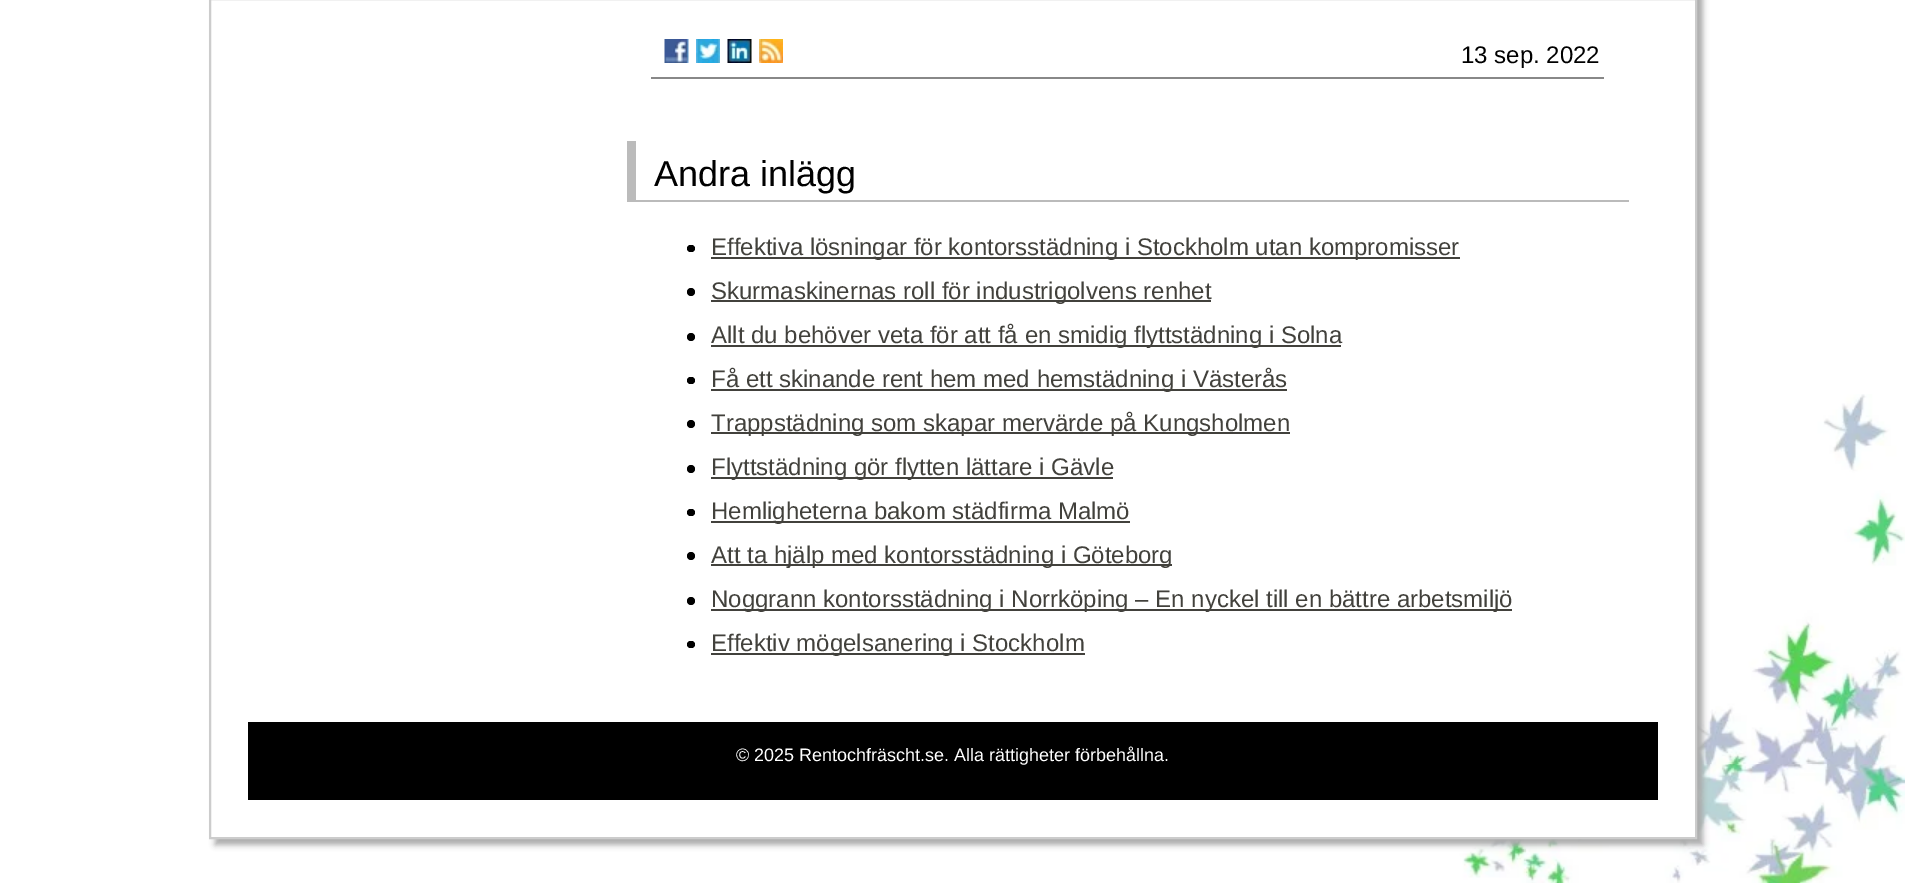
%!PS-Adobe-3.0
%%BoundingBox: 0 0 1905 883
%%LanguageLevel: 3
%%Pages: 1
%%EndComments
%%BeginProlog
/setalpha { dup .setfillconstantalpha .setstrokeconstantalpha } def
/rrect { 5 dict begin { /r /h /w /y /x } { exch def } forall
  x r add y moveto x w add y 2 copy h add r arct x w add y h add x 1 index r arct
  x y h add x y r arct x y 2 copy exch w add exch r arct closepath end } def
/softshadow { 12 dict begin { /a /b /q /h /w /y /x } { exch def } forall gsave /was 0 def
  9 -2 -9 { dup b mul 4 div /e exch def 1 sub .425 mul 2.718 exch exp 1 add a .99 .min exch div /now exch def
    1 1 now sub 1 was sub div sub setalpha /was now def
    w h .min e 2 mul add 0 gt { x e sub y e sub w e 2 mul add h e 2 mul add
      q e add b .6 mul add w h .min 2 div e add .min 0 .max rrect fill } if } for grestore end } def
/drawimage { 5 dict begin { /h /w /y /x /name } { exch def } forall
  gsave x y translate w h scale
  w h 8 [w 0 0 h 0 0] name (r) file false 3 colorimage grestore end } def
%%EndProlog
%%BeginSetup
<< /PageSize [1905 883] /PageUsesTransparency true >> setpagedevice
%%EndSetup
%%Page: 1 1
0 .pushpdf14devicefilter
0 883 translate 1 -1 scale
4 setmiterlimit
1 setgray
0 0 1905 883 rectfill
(images/1.raw) 1399 394 506 489 drawimage
0.667 setgray
215 -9 1488 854 0 3 1 softshadow
1 setgray
newpath 210 -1 moveto 1696 -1 lineto 1696 838 lineto 210 838 lineto closepath gsave fill grestore
0.8 setgray
2 setlinewidth
stroke
(images/2.raw) 664 39 25 24 drawimage
(images/3.raw) 696 39 24 24 drawimage
(images/4.raw) 727 39 25 24 drawimage
(images/5.raw) 759 39 24 24 drawimage
0.533 setgray
651 77 953 2 rectfill
0.733 setgray
627 200 1002 2 rectfill
627 141 9 59 rectfill
0 setgray
687 245 8 7 3.5 rrect fill
0.259 0.255 0.235 setrgbcolor
711 257 749 2 rectfill
0 setgray
newpath 691 292 4 0 360 arc closepath fill
0.259 0.255 0.235 setrgbcolor
711 300 500 2 rectfill
0 setgray
newpath 691 337 4 0 360 arc closepath fill
0.259 0.255 0.235 setrgbcolor
711 345 630 2 rectfill
0 setgray
687 377 8 7 3.5 rrect fill
0.259 0.255 0.235 setrgbcolor
711 389 576 2 rectfill
0 setgray
newpath 691 424 4 0 360 arc closepath fill
0.259 0.255 0.235 setrgbcolor
711 432 579 2 rectfill
0 setgray
newpath 691 469 4 0 360 arc closepath fill
0.259 0.255 0.235 setrgbcolor
711 477 402 2 rectfill
0 setgray
687 509 8 7 3.5 rrect fill
0.259 0.255 0.235 setrgbcolor
711 521 419 2 rectfill
0 setgray
newpath 691 556 4 0 360 arc closepath fill
0.259 0.255 0.235 setrgbcolor
711 564 461 2 rectfill
0 setgray
newpath 691 601 4 0 360 arc closepath fill
0.259 0.255 0.235 setrgbcolor
711 609 801 2 rectfill
0 setgray
687 641 8 7 3.5 rrect fill
0.259 0.255 0.235 setrgbcolor
711 653 374 2 rectfill
0 setgray
248 722 1410 78 rectfill
/LiberationSans-Regular [24 0 0 -24 0 0] selectfont
1461 63 moveto (13 sep. 2022) show
/LiberationSans-Regular [36 0 0 -36 0 0] selectfont
654 186 moveto (Andra inlägg) show
/LiberationSans-Regular [24 0 0 -24 0 0] selectfont
0.259 0.255 0.235 setrgbcolor
711 255 moveto (Effektiva lösningar för kontorsstädning i Stockholm utan kompromisser) show
711 299 moveto (Skurmaskinernas roll för industrigolvens renhet) show
711 343 moveto (Allt du behöver veta för att få en smidig flyttstädning i Solna) show
711 387 moveto (Få ett skinande rent hem med hemstädning i Västerås) show
711 431 moveto (Trappstädning som skapar mervärde på Kungsholmen) show
711 475 moveto (Flyttstädning gör flytten lättare i Gävle) show
711 519 moveto (Hemligheterna bakom städfirma Malmö) show
711 563 moveto (Att ta hjälp med kontorsstädning i Göteborg) show
711 607 moveto (Noggrann kontorsstädning i Norrköping – En nyckel till en bättre arbetsmiljö) show
711 651 moveto (Effektiv mögelsanering i Stockholm) show
/LiberationSans-Regular [18 0 0 -18 0 0] selectfont
1 setgray
736 761 moveto (© 2025 Rentochfräscht.se. Alla rättigheter förbehållna.) show
.poppdf14devicefilter showpage
%%EOF
